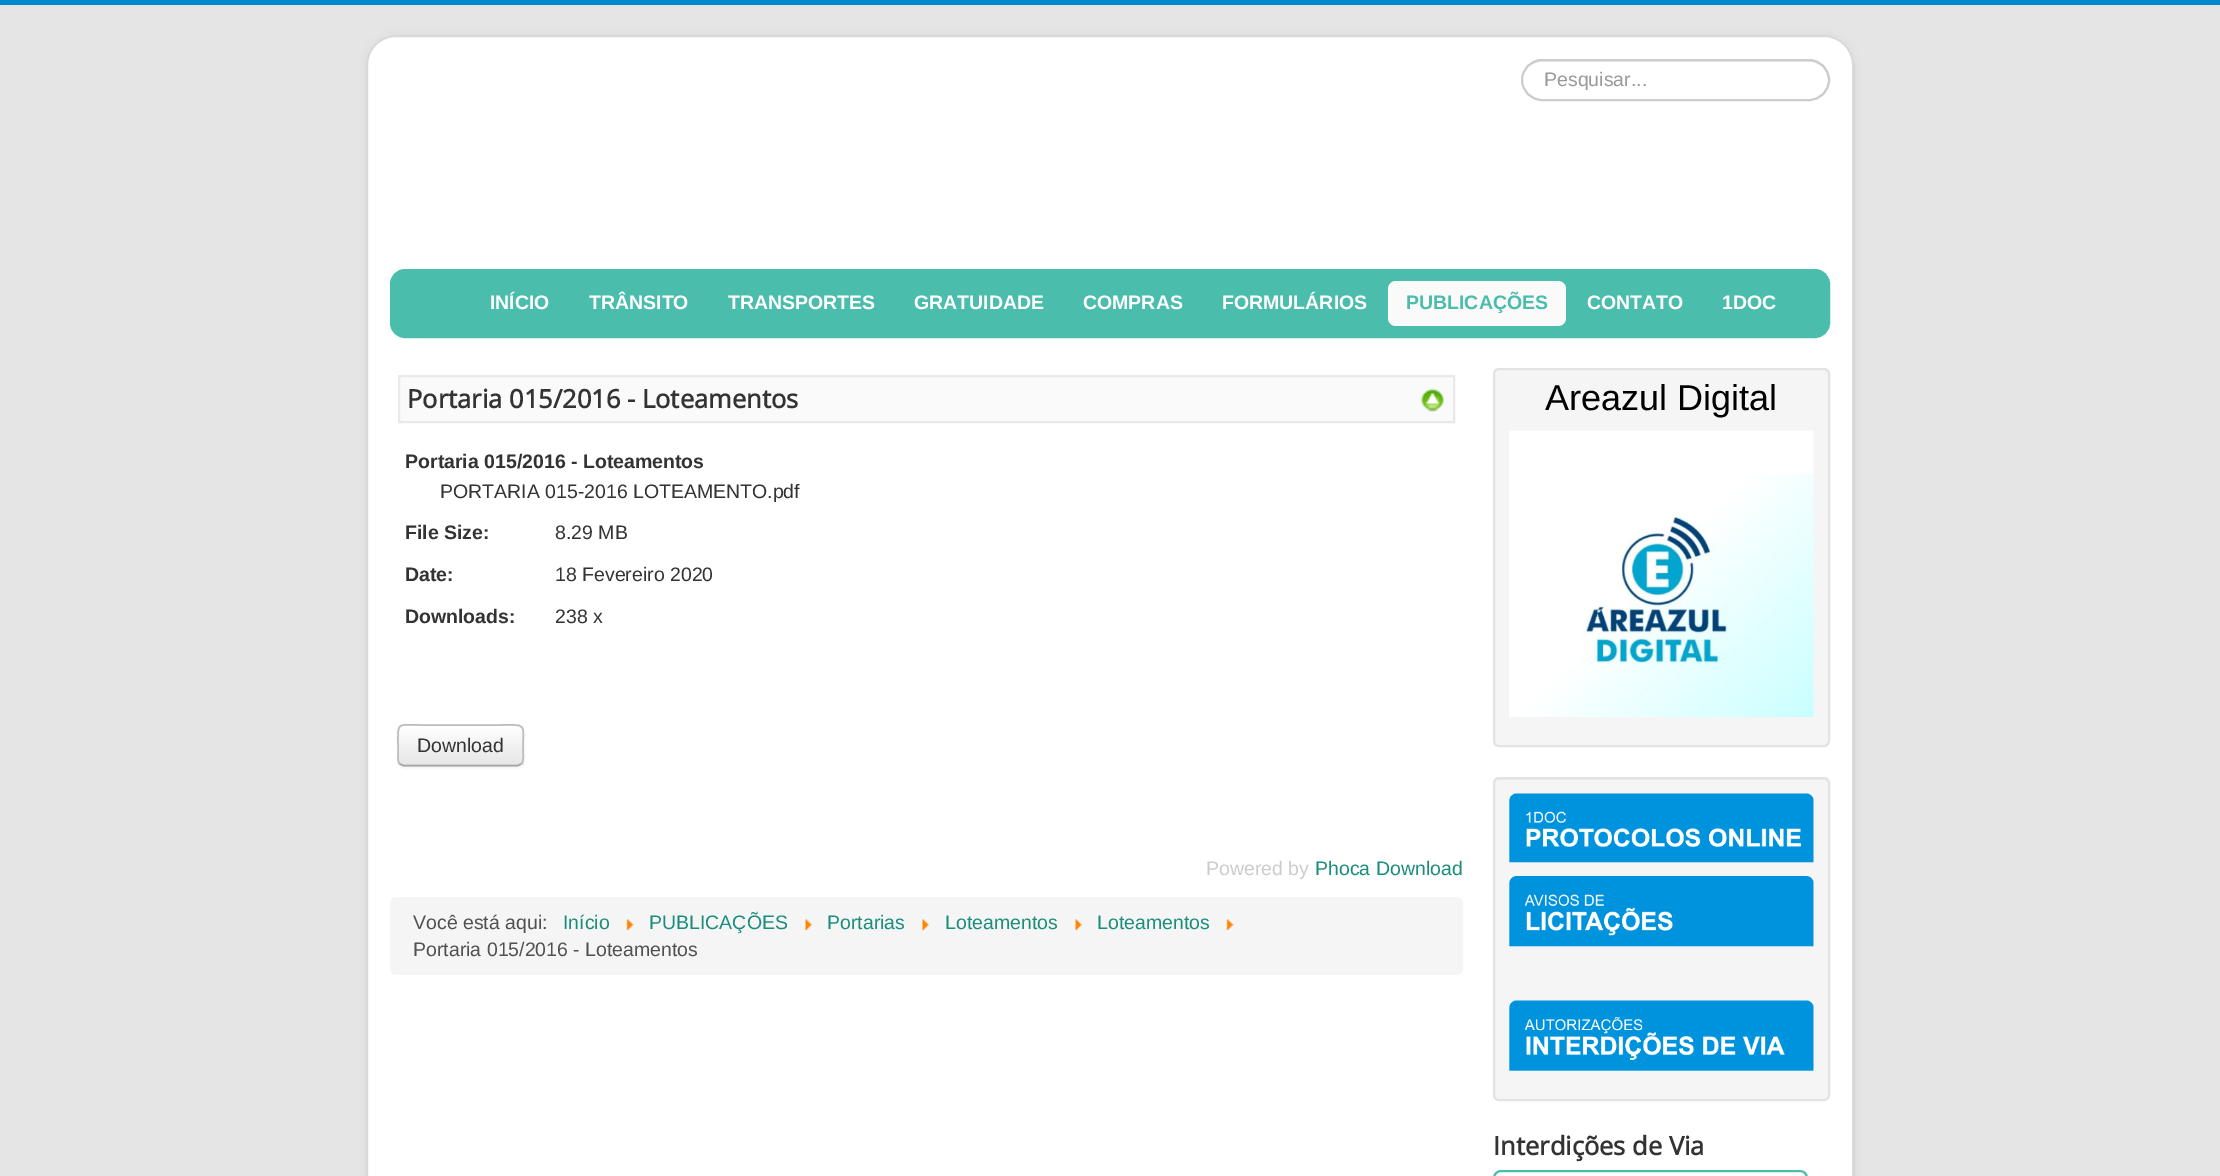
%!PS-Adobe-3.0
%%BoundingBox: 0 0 2220 1176
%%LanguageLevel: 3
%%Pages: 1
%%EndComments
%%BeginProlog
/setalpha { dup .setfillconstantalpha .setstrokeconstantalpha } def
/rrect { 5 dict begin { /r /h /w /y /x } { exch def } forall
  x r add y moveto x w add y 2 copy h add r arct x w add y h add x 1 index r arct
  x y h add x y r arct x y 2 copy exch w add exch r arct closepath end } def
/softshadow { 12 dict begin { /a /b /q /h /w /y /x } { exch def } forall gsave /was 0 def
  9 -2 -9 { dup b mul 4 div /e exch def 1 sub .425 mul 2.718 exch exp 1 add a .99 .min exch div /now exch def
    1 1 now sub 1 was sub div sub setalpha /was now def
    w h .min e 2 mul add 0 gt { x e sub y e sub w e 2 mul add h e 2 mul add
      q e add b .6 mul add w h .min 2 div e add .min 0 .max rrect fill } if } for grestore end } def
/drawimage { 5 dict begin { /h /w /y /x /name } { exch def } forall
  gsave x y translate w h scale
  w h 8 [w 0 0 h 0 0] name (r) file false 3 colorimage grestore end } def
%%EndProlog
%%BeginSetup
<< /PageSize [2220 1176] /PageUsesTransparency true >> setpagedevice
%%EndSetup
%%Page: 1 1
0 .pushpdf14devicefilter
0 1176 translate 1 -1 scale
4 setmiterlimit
0.898 setgray
0 0 2220 1176 rectfill
0 0.533 0.8 setrgbcolor
0 0 2220 5 rectfill
0 setgray
366 35 1488 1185 30 4.5 0.05 softshadow
1 setgray
366 35 1488 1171 30 rrect fill
0.15 setalpha
0 setgray
2 setlinewidth
367 36 1486 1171 29 rrect stroke
1 setalpha
0.925 setgray
newpath 1542 62 moveto 1809 62 lineto 1820 62 1828 70 1828 81 curveto 1828 84 1827 87 1826 90 curveto 1828 87 1829 83 1829 80 curveto 1829 69 1820 60 1810 60 curveto 1542 60 lineto 1535 60 1528 64 1525 70 curveto 1529 65 1535 62 1542 62 curveto closepath fill
0.8 setgray
1522 60 307 40 20 rrect stroke
0.29 0.741 0.675 setrgbcolor
391 270 1438 67 14 rrect gsave fill grestore
stroke
0.98 setgray
1388 281 178 45 8 rrect fill
newpath 399 376 moveto 1454 376 lineto 1454 422 lineto 399 422 lineto closepath gsave fill grestore
0.914 setgray
stroke
(images/1.raw) 1420 388 25 24 drawimage
0 setgray
398 726 126 42 6 1.5 0.05 softshadow
0.961 setgray
398 725 126 42 6 rrect fill
gsave
398 725 126 42 6 rrect clip newpath
gsave newpath 398 726 moveto 524 726 lineto 524 765 lineto 398 765 lineto closepath clip newpath
<< /ShadingType 2 /ColorSpace /DeviceRGB /Coords [461 726 461 765] /Extend [true true] /Function << /FunctionType 2 /Domain [0 1] /C0 [1 1 1] /C1 [0.902 0.902 0.902] /N 1 >> >> shfill grestore
grestore
0.635 setgray
1.5 setlinewidth
newpath 521 764 moveto 518 765.5 lineto 403 765.5 lineto 400 764 lineto stroke
0.733 setgray
newpath 400 764 moveto 397.5 762 398 758.5 398 755.5 curveto 398 745.5 lineto 398 721 396 725 422.5 725 curveto 498.5 725 lineto 528 725 523 722 523 750.5 curveto 523 754 524.5 761 521 764 curveto stroke
0.961 setgray
390 897 1073 78 6 rrect fill
(images/2.raw) 626 919 8 11 drawimage
(images/3.raw) 805 919 7 11 drawimage
(images/3.raw) 922 919 7 11 drawimage
(images/4.raw) 1075 919 7 11 drawimage
(images/5.raw) 1226 919 8 11 drawimage
1493 368 337 379 6 rrect fill
0.914 setgray
newpath 1498 370 moveto 1824 370 lineto 1826 370 1828 373 1828 375 curveto 1828 742 lineto 1827 745 lineto 1828 744 1829 742 1829 741 curveto 1829 374 lineto 1829 371 1827 369 1824 369 curveto 1499 369 lineto 1496 369 1494 371 1494 374 curveto 1494 375 lineto 1494 373 1496 370 1498 370 curveto closepath fill
0.89 setgray
2 setlinewidth
1494 369 335 377 5 rrect stroke
(images/6.raw) 1509 430 305 287 drawimage
0.961 setgray
1493 777 337 324 6 rrect fill
0.914 setgray
newpath 1498 780 moveto 1824 780 lineto 1826 780 1828 782 1828 784 curveto 1828 1096 lineto 1827 1099 lineto 1828 1098 1829 1096 1829 1095 curveto 1829 784 lineto 1829 781 1827 779 1824 779 curveto 1499 779 lineto 1496 779 1494 781 1494 784 curveto 1494 782 1496 780 1498 780 curveto closepath fill
0.89 setgray
1494 778 335 322 5 rrect stroke
(images/7.raw) 1509 793 305 70 drawimage
(images/8.raw) 1509 876 305 71 drawimage
(images/9.raw) 1509 1000 305 71 drawimage
0.29 0.741 0.675 setrgbcolor
1494 1171 313 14 7 rrect stroke
/LiberationSans-Regular [19.5 0 0 -19.5 0 0] selectfont
0.6 setgray
1544 86 moveto (Pesquisar...) show
/LiberationSans-Bold [19.5 0 0 -19.5 0 0] selectfont
1 setgray
490 309 moveto (INÍCIO) show
589 309 moveto (TRÂNSITO) show
728 309 moveto (TRANSPORTES) show
914 309 moveto (GRATUIDADE) show
1083 309 moveto (COMPRAS) show
1222 309 moveto (FORMULÁRIOS) show
0.29 0.741 0.675 setrgbcolor
1406 309 moveto (PUBLICAÇÕES) show
1 setgray
1587 309 moveto (CONTATO) show
1722 309 moveto (1DOC) show
/OpenSans-Bold [25.5 0 0 -25.5 0 0] selectfont
0.2 setgray
407 408 moveto (Portaria 015/2016 - Loteamentos) show
/LiberationSans-Bold [19.5 0 0 -19.5 0 0] selectfont
405 468 moveto (Portaria 015/2016 - Loteamentos) show
/LiberationSans-Regular [19.5 0 0 -19.5 0 0] selectfont
440 498 moveto (PORTARIA 015-2016 LOTEAMENTO.pdf) show
/LiberationSans-Bold [19.5 0 0 -19.5 0 0] selectfont
405 539 moveto (File Size:) show
/LiberationSans-Regular [19.5 0 0 -19.5 0 0] selectfont
555 539 moveto (8.29 MB) show
/LiberationSans-Bold [19.5 0 0 -19.5 0 0] selectfont
405 581 moveto (Date:) show
/LiberationSans-Regular [19.5 0 0 -19.5 0 0] selectfont
555 581 moveto (18 Fevereiro 2020) show
/LiberationSans-Bold [19.5 0 0 -19.5 0 0] selectfont
405 623 moveto (Downloads:) show
/LiberationSans-Regular [19.5 0 0 -19.5 0 0] selectfont
555 623 moveto (238 x) show
417 752 moveto (Download) show
0.8 setgray
1206 875 moveto (Powered by) show
0.102 0.553 0.486 setrgbcolor
1315 875 moveto (Phoca Download) show
0.318 setgray
413 929 moveto (Você está aqui:) show
0.102 0.553 0.486 setrgbcolor
563 929 moveto (Início) show
649 929 moveto (PUBLICAÇÕES) show
827 929 moveto (Portarias) show
945 929 moveto (Loteamentos) show
1097 929 moveto (Loteamentos) show
0.318 setgray
413 956 moveto (Portaria 015/2016 - Loteamentos) show
/LiberationSans-Regular [36 0 0 -36 0 0] selectfont
0 setgray
1545 410 moveto (Areazul Digital) show
/OpenSans-Bold [25.5 0 0 -25.5 0 0] selectfont
0.2 setgray
1493 1155 moveto (Interdições de Via) show
.poppdf14devicefilter showpage
%%EOF
